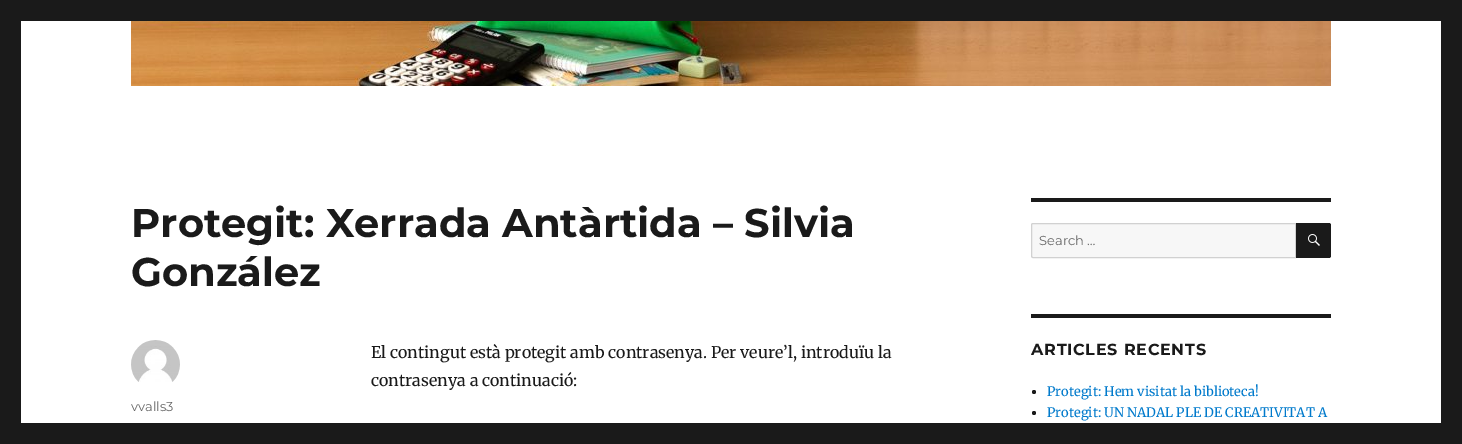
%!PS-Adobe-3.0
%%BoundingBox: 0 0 1462 444
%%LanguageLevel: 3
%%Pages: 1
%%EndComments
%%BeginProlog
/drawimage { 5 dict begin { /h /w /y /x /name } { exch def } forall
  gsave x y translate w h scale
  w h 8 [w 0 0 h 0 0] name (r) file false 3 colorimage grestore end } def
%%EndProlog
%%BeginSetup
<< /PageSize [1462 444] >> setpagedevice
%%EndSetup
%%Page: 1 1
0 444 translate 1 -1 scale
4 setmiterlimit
0.102 setgray
0 0 1462 444 rectfill
1 setgray
21 21 1420 402 rectfill
(images/1.raw) 131 21 1200 65 drawimage
(images/2.raw) 131 340 49 42 drawimage
0.102 setgray
1031 198 300 4 rectfill
0.969 setgray
newpath 1033 223.5 moveto 1295.5 223.5 lineto 1295.5 257.5 lineto 1033 257.5 lineto 1032 257.5 1031.5 257 1031.5 256 curveto 1031.5 225 lineto 1031.5 224 1032 223.5 1033 223.5 curveto closepath gsave fill grestore
0.82 setgray
stroke
0.102 setgray
newpath 1296 223 moveto 1329 223 lineto 1330 223 1331 224 1331 225 curveto 1331 256 lineto 1331 257 1330 258 1329 258 curveto 1296 258 lineto closepath fill
(images/3.raw) 1308 234 12 12 drawimage
1031 314 300 4 rectfill
newpath 1034 392 2 0 360 arc closepath fill
newpath 1034 413 2 0 360 arc closepath fill
/Montserrat-Bold [40 0 0 -40 0 0] selectfont
131 237 moveto (Protegit: Xerrada Antàrtida – Silvia) show
131 286 moveto (González) show
/Merriweather-Regular [16 0 0 -16 0 0] selectfont
371 358 moveto (El contingut està protegit amb contrasenya. Per veure’l, introduïu la) show
371 386 moveto (contrasenya a continuació:) show
/Montserrat-Regular [13 0 0 -13 0 0] selectfont
0.408 setgray
131 411 moveto (vvalls3) show
1039 245 moveto (Search …) show
/Montserrat-Bold [16 0 0 -16 0 0] selectfont
0.102 setgray
1031 355 moveto 0.75 0 (ARTICLES RECENTS) ashow
/Merriweather-Regular [13 0 0 -13 0 0] selectfont
0 0.478 0.8 setrgbcolor
1047 396 moveto (Protegit: Hem visitat la biblioteca!) show
1047 417 moveto (Protegit: UN NADAL PLE DE CREATIVITAT A) show
showpage
%%EOF
